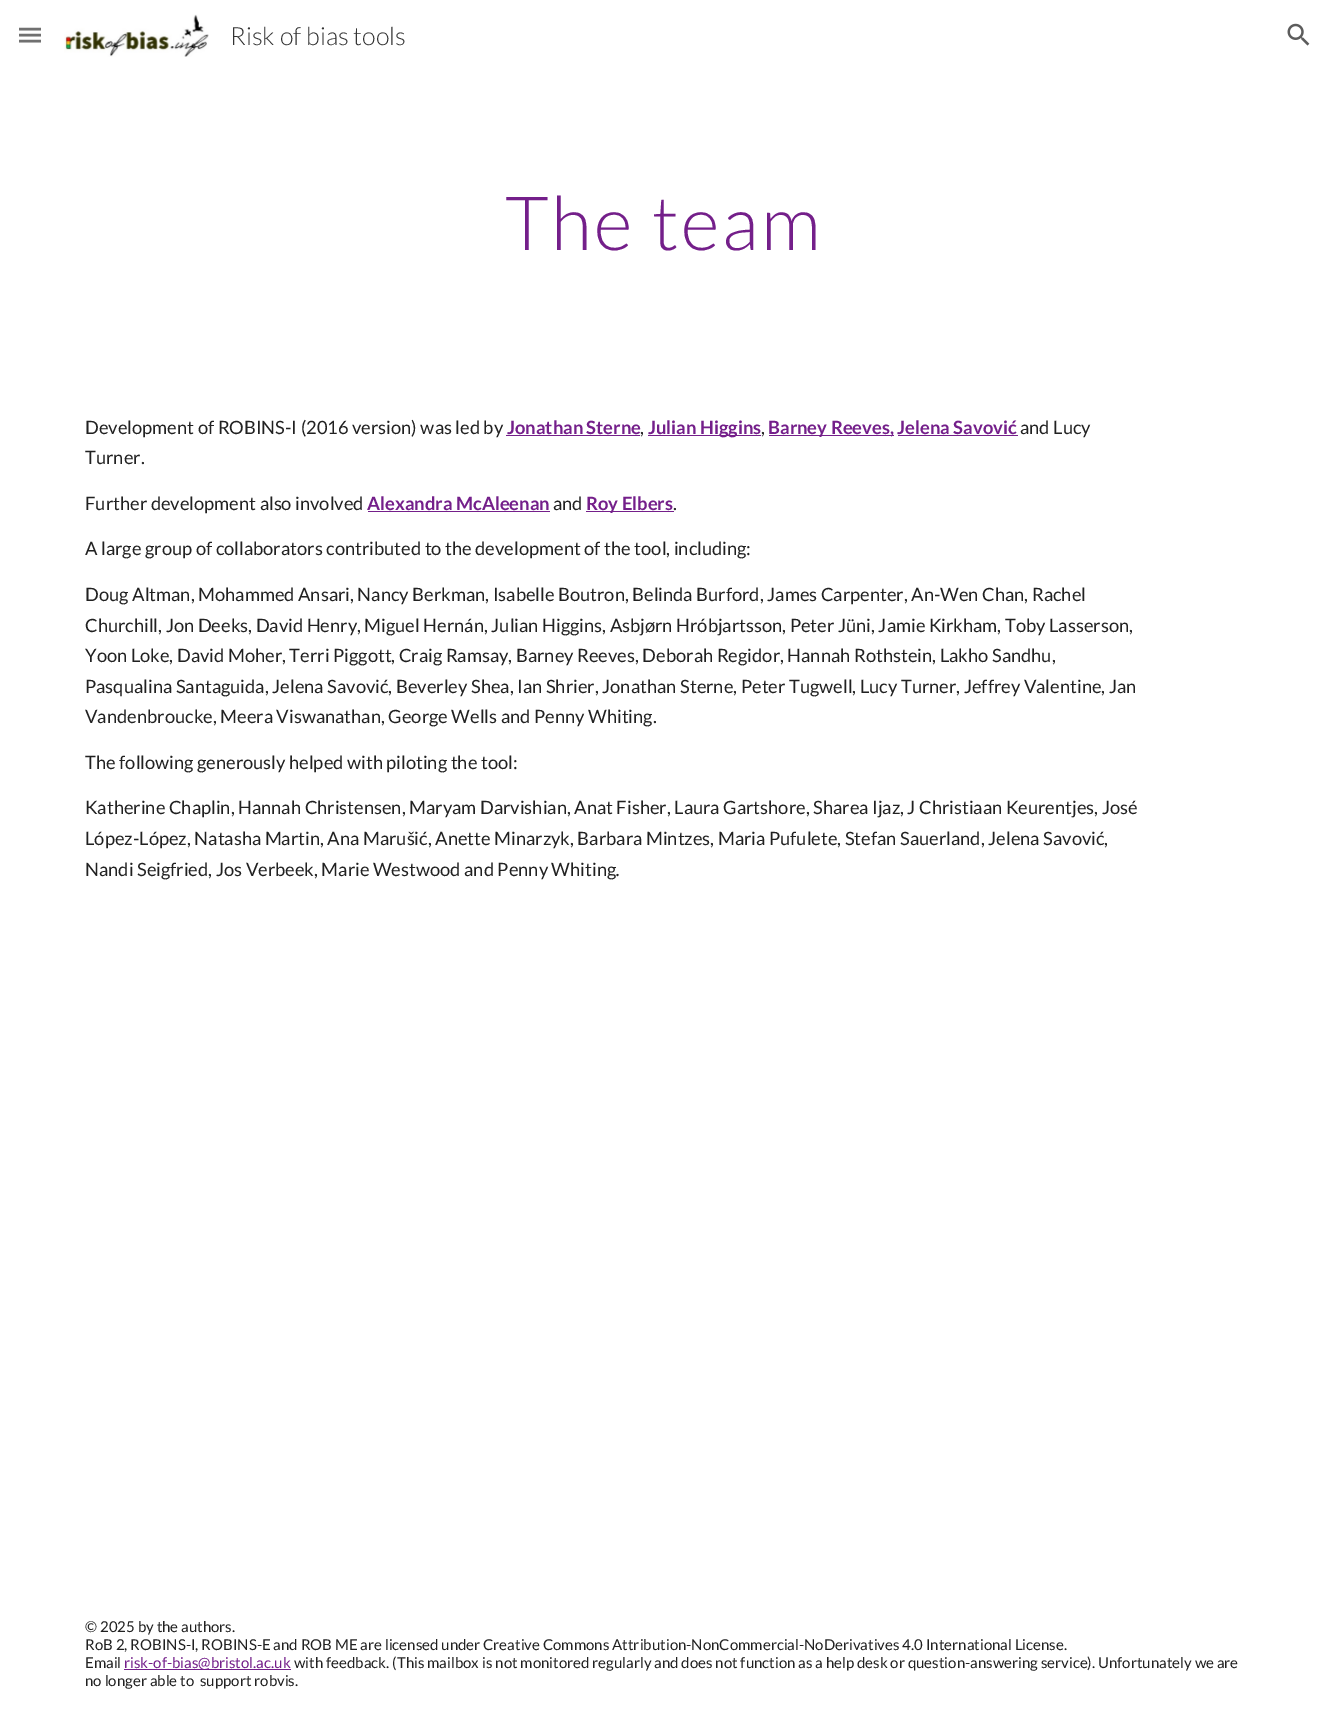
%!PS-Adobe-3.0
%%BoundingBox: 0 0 1328 1730
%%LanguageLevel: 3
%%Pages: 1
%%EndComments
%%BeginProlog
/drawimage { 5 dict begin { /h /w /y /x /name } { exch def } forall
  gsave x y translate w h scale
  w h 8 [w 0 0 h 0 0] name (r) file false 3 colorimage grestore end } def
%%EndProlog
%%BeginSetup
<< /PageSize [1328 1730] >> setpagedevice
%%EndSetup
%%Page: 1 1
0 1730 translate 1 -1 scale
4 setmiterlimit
1 setgray
0 0 1328 1730 rectfill
0.439 setgray
2.5 setlinewidth
newpath 19 29 moveto 41 29 lineto 19 35 moveto 41 35 lineto 19 41 moveto 41 41 lineto stroke
(images/1.raw) 64 14 145 43 drawimage
(images/2.raw) 1287 23 23 23 drawimage
0.455 0.122 0.541 setrgbcolor
506 435 134 1 rectfill
648 435 113 1 rectfill
769 435 125 1 rectfill
898 435 120 1 rectfill
368 511 182 1 rectfill
586 511 88 1 rectfill
124 1669 167 1 rectfill
/Lato-Light [25 0 0 -25 0 0] selectfont
0.2 setgray
230 45 moveto (Risk of bias tools) show
/Lato-Light [75 0 0 -75 0 0] selectfont
0.455 0.122 0.541 setrgbcolor
505 250 moveto 2.5 0 (The team) ashow
/Lato-Regular [18.33 0 0 -18.33 0 0] selectfont
0.129 setgray
85 434 moveto (Development of ROBINS-I \(2016 version\) was led by) show
/Lato-Bold [18.33 0 0 -18.33 0 0] selectfont
0.455 0.122 0.541 setrgbcolor
507 434 moveto (Jonathan Sterne) show
/Lato-Regular [18.33 0 0 -18.33 0 0] selectfont
0.129 setgray
640 434 moveto (,) show
/Lato-Bold [18.33 0 0 -18.33 0 0] selectfont
0.455 0.122 0.541 setrgbcolor
648 434 moveto (Julian Higgins) show
/Lato-Regular [18.33 0 0 -18.33 0 0] selectfont
0.129 setgray
761 434 moveto (,) show
/Lato-Bold [18.33 0 0 -18.33 0 0] selectfont
0.455 0.122 0.541 setrgbcolor
768 434 moveto (Barney Reeves, Jelena Savović) show
/Lato-Regular [18.33 0 0 -18.33 0 0] selectfont
0.129 setgray
1020 434 moveto (and Lucy) show
85 464 moveto (Turner.) show
85 510 moveto (Further development also involved) show
/Lato-Bold [18.33 0 0 -18.33 0 0] selectfont
0.455 0.122 0.541 setrgbcolor
367 510 moveto (Alexandra McAleenan) show
/Lato-Regular [18.33 0 0 -18.33 0 0] selectfont
0.129 setgray
553 510 moveto (and) show
/Lato-Bold [18.33 0 0 -18.33 0 0] selectfont
0.455 0.122 0.541 setrgbcolor
586 510 moveto (Roy Elbers) show
/Lato-Regular [18.33 0 0 -18.33 0 0] selectfont
0.129 setgray
673 510 moveto (.) show
85 555 moveto (A large group of collaborators contributed to the development of the tool, including:) show
85 601 moveto (Doug Altman, Mohammed Ansari, Nancy Berkman, Isabelle Boutron, Belinda Burford, James Carpenter, An-Wen Chan, Rachel) show
85 632 moveto (Churchill, Jon Deeks, David Henry, Miguel Hernán, Julian Higgins, Asbjørn Hróbjartsson, Peter Jüni, Jamie Kirkham, Toby Lasserson,) show
85 662 moveto (Yoon Loke, David Moher, Terri Piggott, Craig Ramsay, Barney Reeves, Deborah Regidor, Hannah Rothstein, Lakho Sandhu,) show
85 693 moveto (Pasqualina Santaguida, Jelena Savović, Beverley Shea, Ian Shrier, Jonathan Sterne, Peter Tugwell, Lucy Turner, Jeffrey Valentine, Jan) show
85 723 moveto (Vandenbroucke, Meera Viswanathan, George Wells and Penny Whiting.) show
85 769 moveto (The following generously helped with piloting the tool:) show
85 814 moveto (Katherine Chaplin, Hannah Christensen, Maryam Darvishian, Anat Fisher, Laura Gartshore, Sharea Ijaz, J Christiaan Keurentjes, José) show
85 845 moveto (López-López, Natasha Martin, Ana Marušić, Anette Minarzyk, Barbara Mintzes, Maria Pufulete, Stefan Sauerland, Jelena Savović,) show
85 876 moveto (Nandi Seigfried, Jos Verbeek, Marie Westwood and Penny Whiting) show
/Lato-Italic [18.33 0 0 -18.33 0 0] selectfont
616 876 moveto (.) show
/Lato-Regular [15 0 0 -15 0 0] selectfont
85 1632 moveto (© 2025 by the authors.) show
85 1650 moveto (RoB 2, ROBINS-I, ROBINS-E and ROB ME are licensed under Creative Commons Attribution-NonCommercial-NoDerivatives 4.0 International License.) show
85 1668 moveto (Email) show
0.455 0.122 0.541 setrgbcolor
124 1668 moveto (risk-of-bias@bristol.ac.uk) show
0.129 setgray
294 1668 moveto (with feedback. \(This mailbox is not monitored regularly and does not function as a help desk or question-answering service\). Unfortunately we are) show
85 1686 moveto (no longer able to  support robvis.) show
showpage
%%EOF
